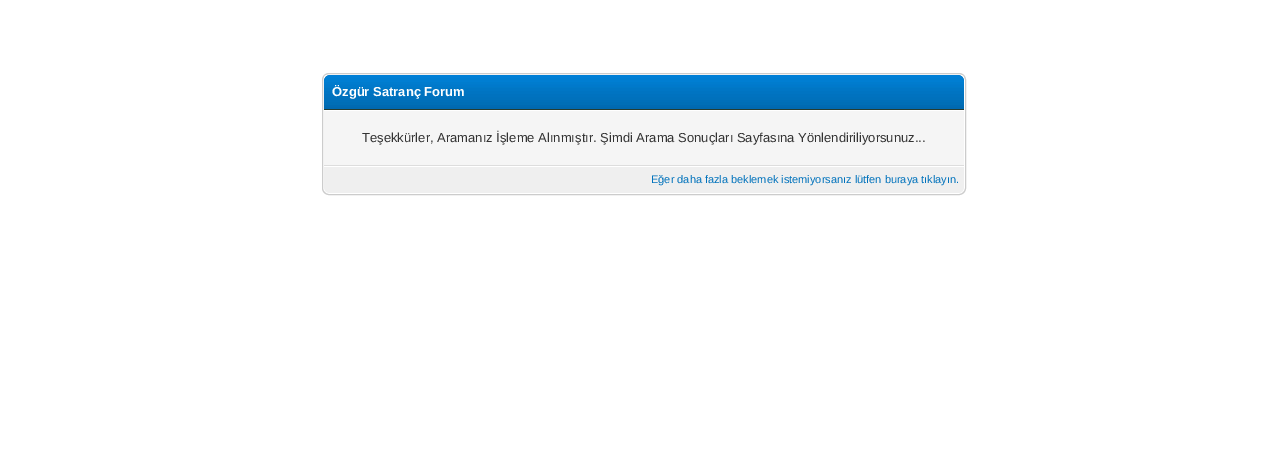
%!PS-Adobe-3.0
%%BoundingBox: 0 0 1288 470
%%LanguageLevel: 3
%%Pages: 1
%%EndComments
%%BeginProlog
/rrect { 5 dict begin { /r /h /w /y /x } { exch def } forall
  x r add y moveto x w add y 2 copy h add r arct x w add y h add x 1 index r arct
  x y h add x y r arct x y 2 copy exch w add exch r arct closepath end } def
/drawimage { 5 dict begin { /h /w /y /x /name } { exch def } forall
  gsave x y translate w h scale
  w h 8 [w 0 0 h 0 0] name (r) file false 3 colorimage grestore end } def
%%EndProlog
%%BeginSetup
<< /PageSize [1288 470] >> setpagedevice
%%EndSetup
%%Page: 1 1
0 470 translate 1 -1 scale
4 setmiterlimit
1 setgray
0 0 1288 470 rectfill
0.8 setgray
322.5 73.5 643 121 6.5 rrect stroke
(images/1.raw) 324 75 640 34 drawimage
0.149 0.235 0.188 setrgbcolor
324 109 640 1 rectfill
0.961 setgray
324 111 640 54 rectfill
0.867 setgray
324 165 640 1 rectfill
0.937 setgray
newpath 324 166 moveto 964 166 lineto 964 187 lineto 964 190.5 961.5 193 958 193 curveto 330 193 lineto 326.5 193 324 190.5 324 187 curveto closepath fill
1 setgray
324 166 640 1 rectfill
/LiberationSans-Bold [13 0 0 -13 0 0] selectfont
332 96 moveto (Özgür Satranç Forum) show
/LiberationSans-Regular [13 0 0 -13 0 0] selectfont
0.2 setgray
362 142 moveto (Teşekkürler, Aramanız İşleme Alınmıştır. Şimdi Arama Sonuçları Sayfasına Yönlendiriliyorsunuz...) show
/LiberationSans-Regular [11 0 0 -11 0 0] selectfont
0 0.447 0.737 setrgbcolor
651 183 moveto (Eğer daha fazla beklemek istemiyorsanız lütfen buraya tıklayın.) show
showpage
%%EOF
